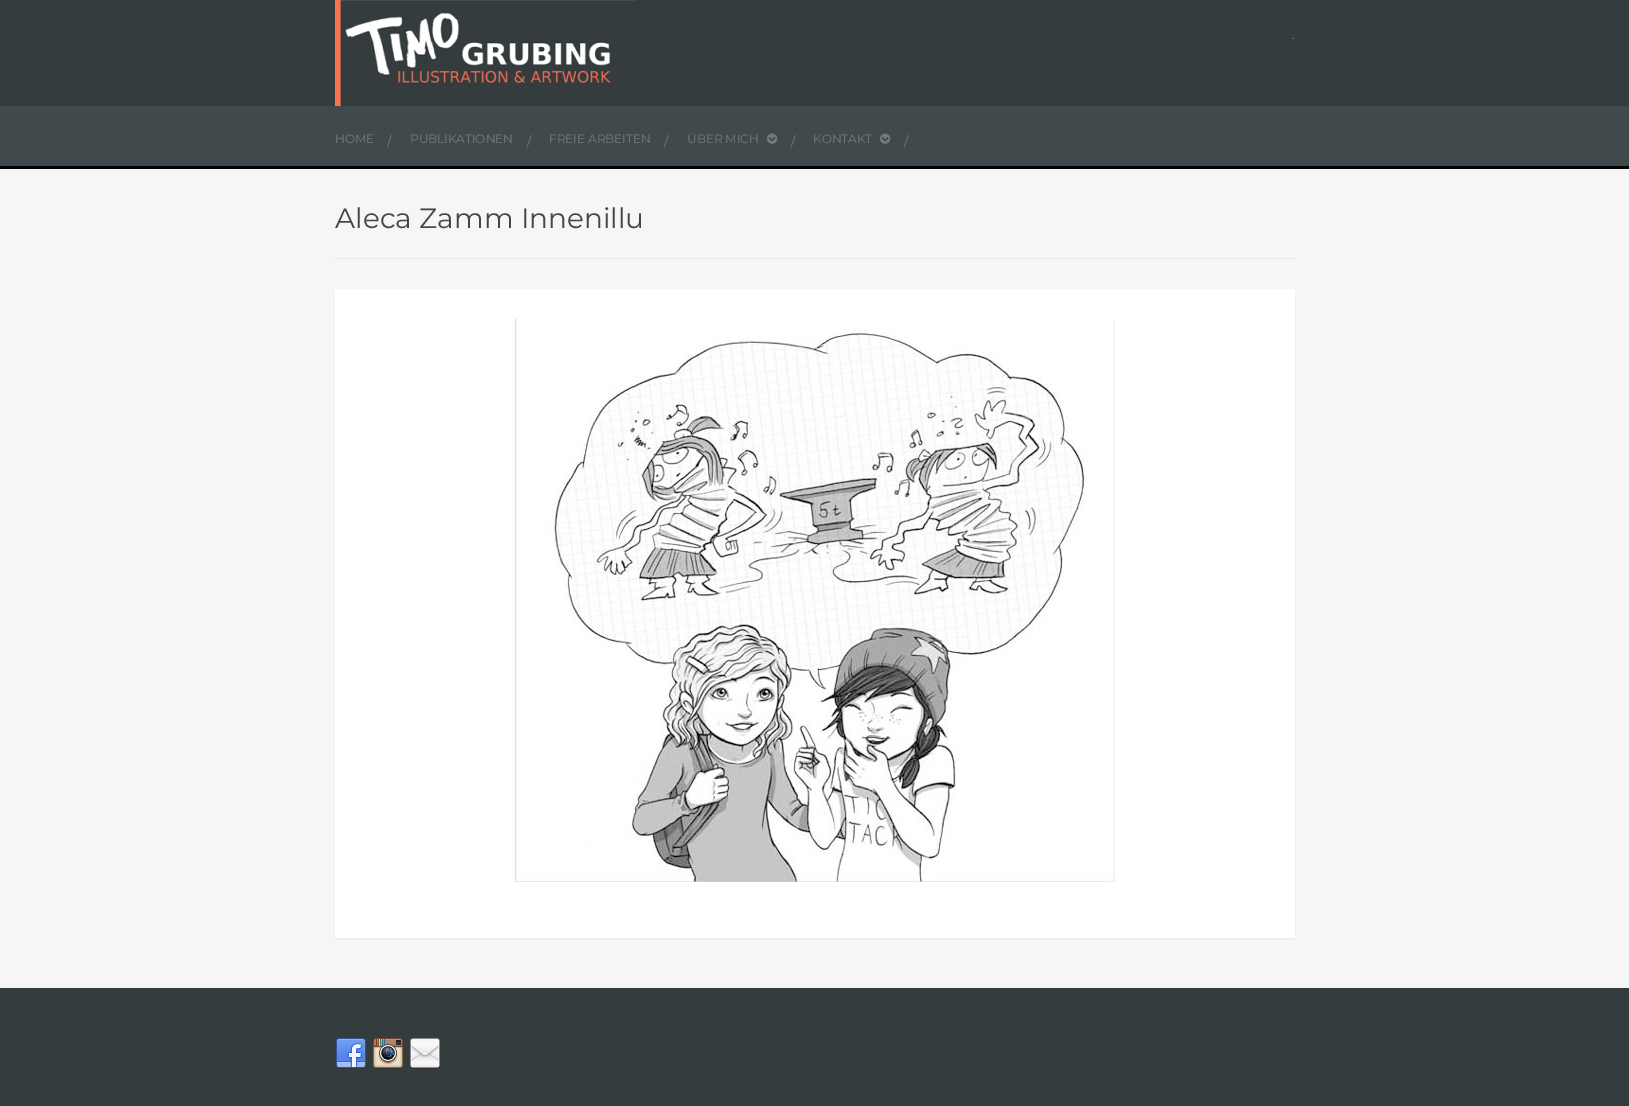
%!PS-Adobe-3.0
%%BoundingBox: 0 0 1629 1106
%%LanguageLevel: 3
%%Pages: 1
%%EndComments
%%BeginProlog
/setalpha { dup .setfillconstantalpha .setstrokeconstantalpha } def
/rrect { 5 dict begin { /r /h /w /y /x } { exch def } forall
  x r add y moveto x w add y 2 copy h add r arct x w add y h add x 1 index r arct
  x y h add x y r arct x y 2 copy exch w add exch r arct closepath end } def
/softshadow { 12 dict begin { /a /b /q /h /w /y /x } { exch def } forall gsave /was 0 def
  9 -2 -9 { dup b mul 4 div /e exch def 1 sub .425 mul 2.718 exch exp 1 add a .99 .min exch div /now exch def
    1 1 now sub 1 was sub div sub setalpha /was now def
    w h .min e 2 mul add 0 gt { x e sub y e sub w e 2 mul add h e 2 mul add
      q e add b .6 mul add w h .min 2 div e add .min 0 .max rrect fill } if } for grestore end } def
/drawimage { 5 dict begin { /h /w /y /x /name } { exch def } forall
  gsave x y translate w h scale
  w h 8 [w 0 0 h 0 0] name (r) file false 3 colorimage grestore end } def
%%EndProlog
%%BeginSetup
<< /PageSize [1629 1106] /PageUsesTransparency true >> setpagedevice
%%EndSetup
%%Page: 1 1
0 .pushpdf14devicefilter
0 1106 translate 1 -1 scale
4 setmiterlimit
0.965 setgray
0 0 1629 1106 rectfill
0.208 0.235 0.243 setrgbcolor
0 0 1629 106 rectfill
(images/1.raw) 335 0 300 106 drawimage
0.251 0.286 0.298 setrgbcolor
0 106 1629 60 rectfill
0.016 0.02 0.02 setrgbcolor
0 166 1629 3 rectfill
(images/2.raw) 767 133 11 11 drawimage
(images/2.raw) 880 133 11 11 drawimage
0.902 setgray
335 258 960 1 rectfill
0 setgray
335 290 960 649 0 0.5 0.06 softshadow
1 setgray
335 289 960 649 rectfill
(images/3.raw) 515 319 600 563 drawimage
0.208 0.235 0.243 setrgbcolor
0 988 1629 118 rectfill
(images/4.raw) 336 1038 30 31 drawimage
(images/5.raw) 373 1038 30 31 drawimage
(images/6.raw) 410 1038 30 31 drawimage
/Montserrat-Italic [12 0 0 -12 0 0] selectfont
0.584 setgray
1292 39 moveto (.) show
/Montserrat-Regular [12 0 0 -12 0 0] selectfont
0.443 0.482 0.494 setrgbcolor
335 143 moveto (HOME) show
/Montserrat-Regular [13 0 0 -13 0 0] selectfont
387 146 moveto (/) show
/Montserrat-Regular [12 0 0 -12 0 0] selectfont
410 143 moveto (PUBLIKATIONEN) show
/Montserrat-Regular [13 0 0 -13 0 0] selectfont
527 146 moveto (/) show
/Montserrat-Regular [12 0 0 -12 0 0] selectfont
549 143 moveto (FREIE ARBEITEN) show
/Montserrat-Regular [13 0 0 -13 0 0] selectfont
664 146 moveto (/) show
/Montserrat-Regular [12 0 0 -12 0 0] selectfont
687 143 moveto (ÜBER MICH) show
/Montserrat-Regular [13 0 0 -13 0 0] selectfont
791 146 moveto (/) show
/Montserrat-Regular [12 0 0 -12 0 0] selectfont
813 143 moveto (KONTAKT) show
/Montserrat-Regular [13 0 0 -13 0 0] selectfont
904 146 moveto (/) show
/Montserrat-Regular [28 0 0 -28 0 0] selectfont
0.275 setgray
335 228 moveto (Aleca Zamm Innenillu) show
.poppdf14devicefilter showpage
%%EOF
